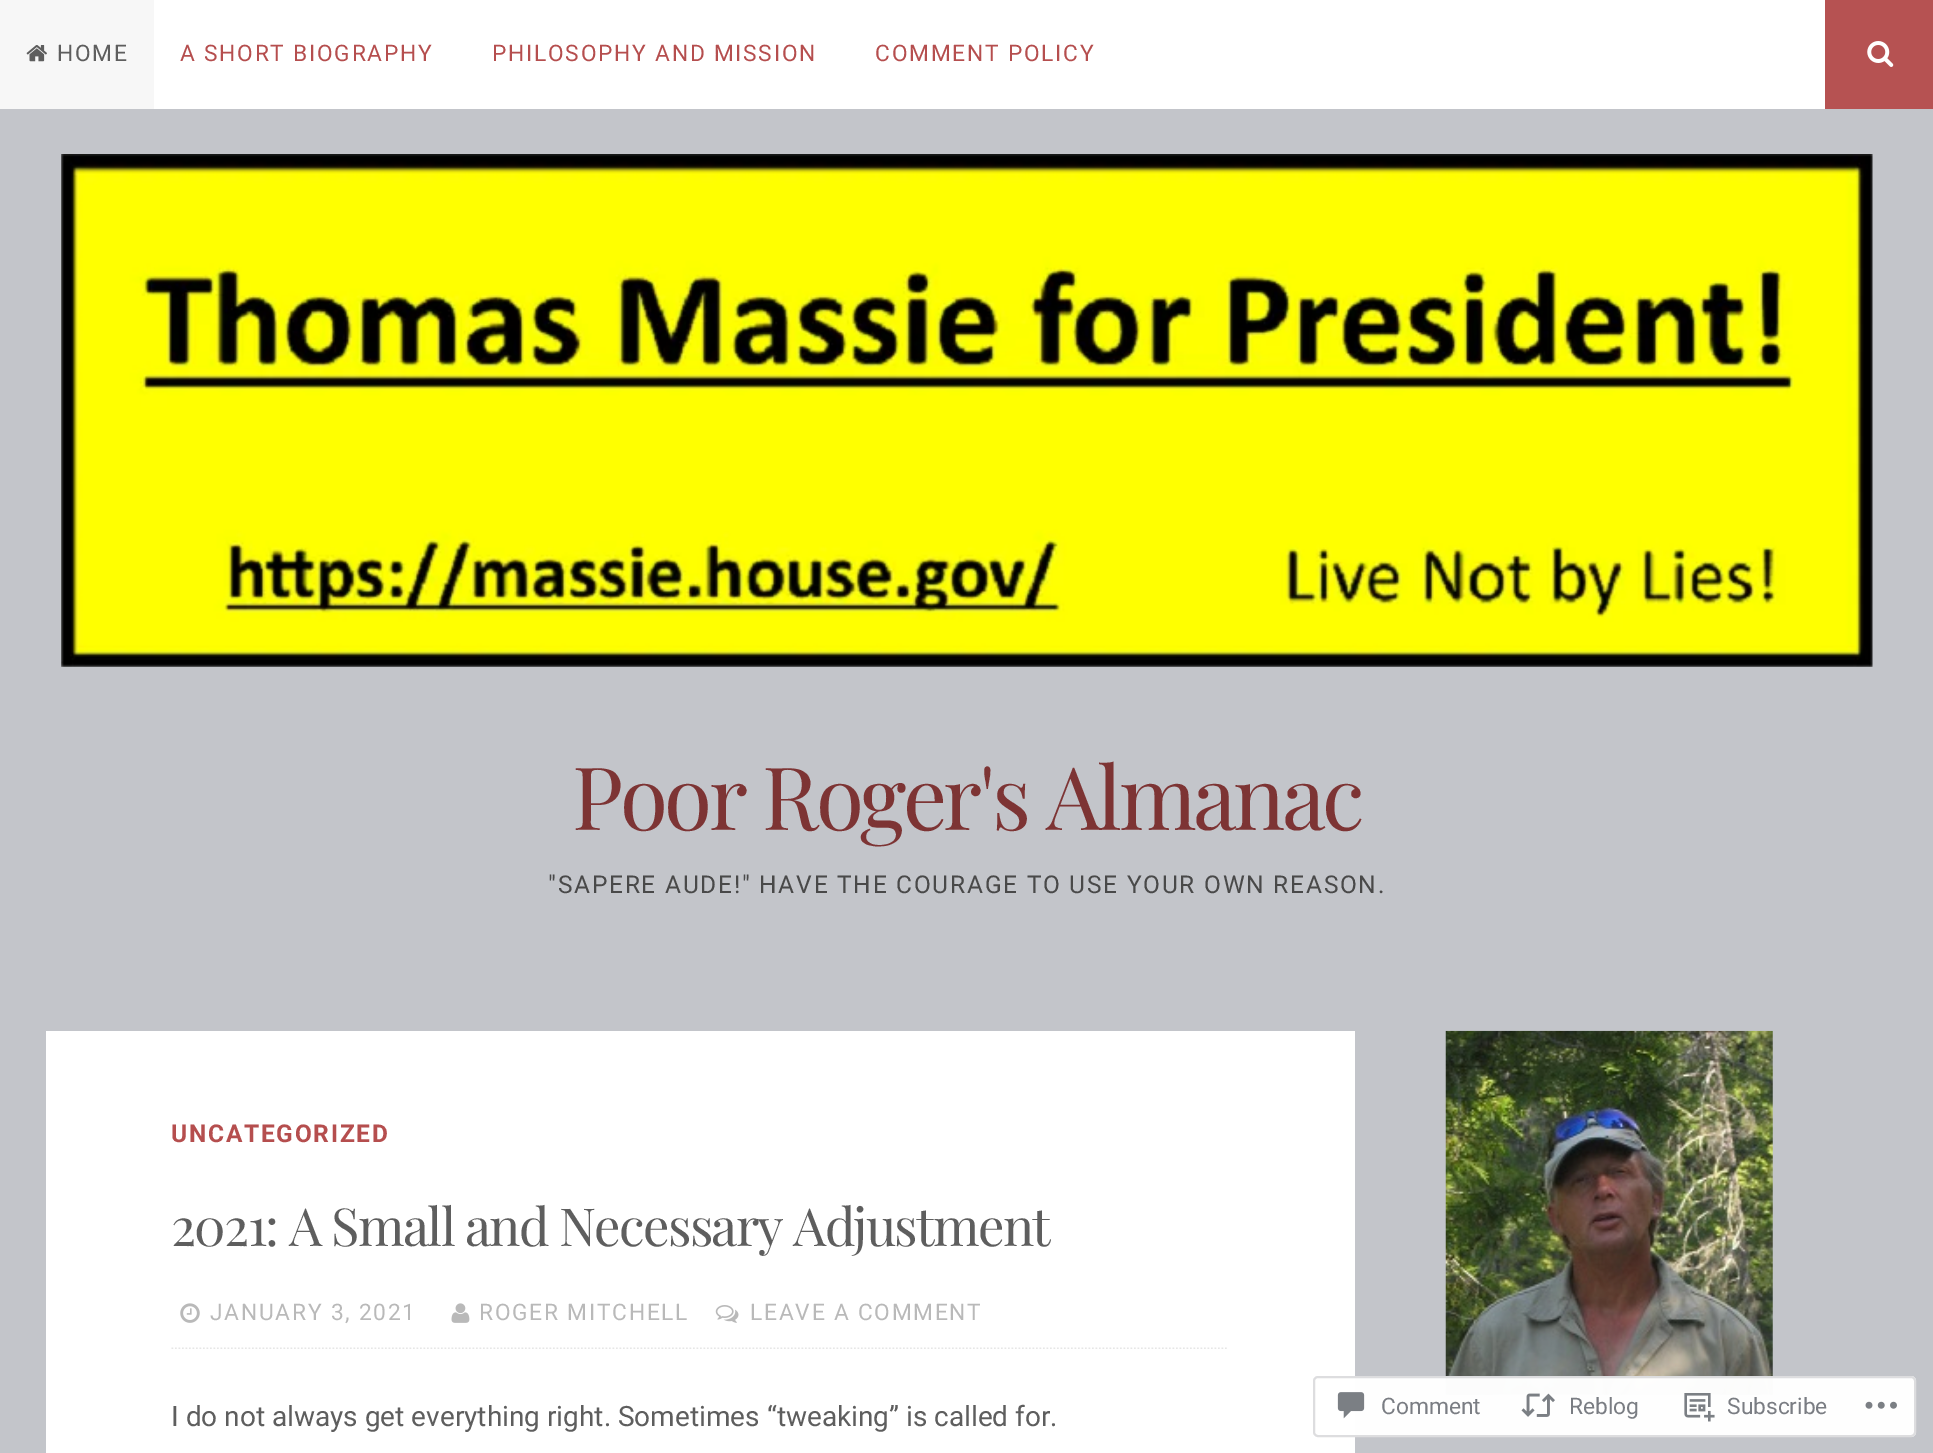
%!PS-Adobe-3.0
%%BoundingBox: 0 0 1933 1453
%%LanguageLevel: 3
%%Pages: 1
%%EndComments
%%BeginProlog
/setalpha { dup .setfillconstantalpha .setstrokeconstantalpha } def
/rrect { 5 dict begin { /r /h /w /y /x } { exch def } forall
  x r add y moveto x w add y 2 copy h add r arct x w add y h add x 1 index r arct
  x y h add x y r arct x y 2 copy exch w add exch r arct closepath end } def
/drawimage { 5 dict begin { /h /w /y /x /name } { exch def } forall
  gsave x y translate w h scale
  w h 8 [w 0 0 h 0 0] name (r) file false 3 colorimage grestore end } def
%%EndProlog
%%BeginSetup
<< /PageSize [1933 1453] /PageUsesTransparency true >> setpagedevice
%%EndSetup
%%Page: 1 1
0 .pushpdf14devicefilter
0 1453 translate 1 -1 scale
4 setmiterlimit
0.765 0.773 0.792 setrgbcolor
0 0 1933 1453 rectfill
1 setgray
154 0 1671 109 rectfill
0.969 setgray
0 0 154 109 rectfill
(images/1.raw) 26 45 21 17 drawimage
0.714 0.322 0.322 setrgbcolor
1825 0 108 109 rectfill
(images/2.raw) 1867 41 27 26 drawimage
(images/3.raw) 61 154 1812 513 drawimage
1 setgray
46 1031 1309 422 rectfill
gsave
46 1031 1309 318 rectclip
0.902 setgray
1.8 setlinewidth
[1.75 1.75] 0 setdash
newpath 171.5 1348.5 moveto 1228.5 1348.5 lineto stroke
grestore
(images/4.raw) 180 1303 20 20 drawimage
(images/5.raw) 451 1303 19 20 drawimage
(images/6.raw) 715 1305 24 18 drawimage
(images/7.raw) 1445 1030 328 365 drawimage
0.98 setalpha
1313 1376 603 61 5 rrect fill
0.863 0.863 0.871 setrgbcolor
2 setlinewidth
1314 1377 601 59 4 rrect stroke
1 setalpha
(images/8.raw) 1337 1392 28 27 drawimage
(images/9.raw) 1521 1393 34 24 drawimage
(images/10.raw) 1684 1393 31 29 drawimage
(images/11.raw) 1865 1401 32 8 drawimage
/Roboto-Regular [22.75 0 0 -22.75 0 0] selectfont
0.369 setgray
57 61 moveto 1.75 0 (HOME) ashow
0.71 0.306 0.306 setrgbcolor
180 61 moveto 1.75 0 (A SHORT BIOGRAPHY) ashow
492 61 moveto 1.75 0 (PHILOSOPHY AND MISSION) ashow
875 61 moveto 1.75 0 (COMMENT POLICY) ashow
/PlayfairDisplay-Regular [87.5 0 0 -87.5 0 0] selectfont
0.49 0.204 0.204 setrgbcolor
572 830 moveto -3.5 0 (Poor Roger's Almanac) ashow
/Roboto-Regular [24.5 0 0 -24.5 0 0] selectfont
0.286 setgray
548 893 moveto 1.75 0 ("SAPERE AUDE!" HAVE THE COURAGE TO USE YOUR OWN REASON.) ashow
/Roboto-Bold [24.5 0 0 -24.5 0 0] selectfont
0.71 0.306 0.306 setrgbcolor
171 1142 moveto 1.75 0 (UNCATEGORIZED) ashow
/PlayfairDisplay-Regular [52.5 0 0 -52.5 0 0] selectfont
0.369 setgray
171 1246 moveto -1.75 0 (2021: A Small and Necessary Adjustment) ashow
/Roboto-Regular [22.75 0 0 -22.75 0 0] selectfont
0.725 setgray
210 1320 moveto 1.75 0 (JANUARY 3, 2021) ashow
479 1320 moveto 1.75 0 (ROGER MITCHELL) ashow
750 1320 moveto 1.75 0 (LEAVE A COMMENT) ashow
/Roboto-Regular [28 0 0 -28 0 0] selectfont
0.369 setgray
171 1426 moveto (I do not always get everything right. Sometimes “tweaking” is called for.) show
/Roboto-Regular [22.75 0 0 -22.75 0 0] selectfont
0.478 0.49 0.514 setrgbcolor
1381 1414 moveto (Comment) show
1569 1414 moveto (Reblog) show
1727 1414 moveto (Subscribe) show
.poppdf14devicefilter showpage
%%EOF
